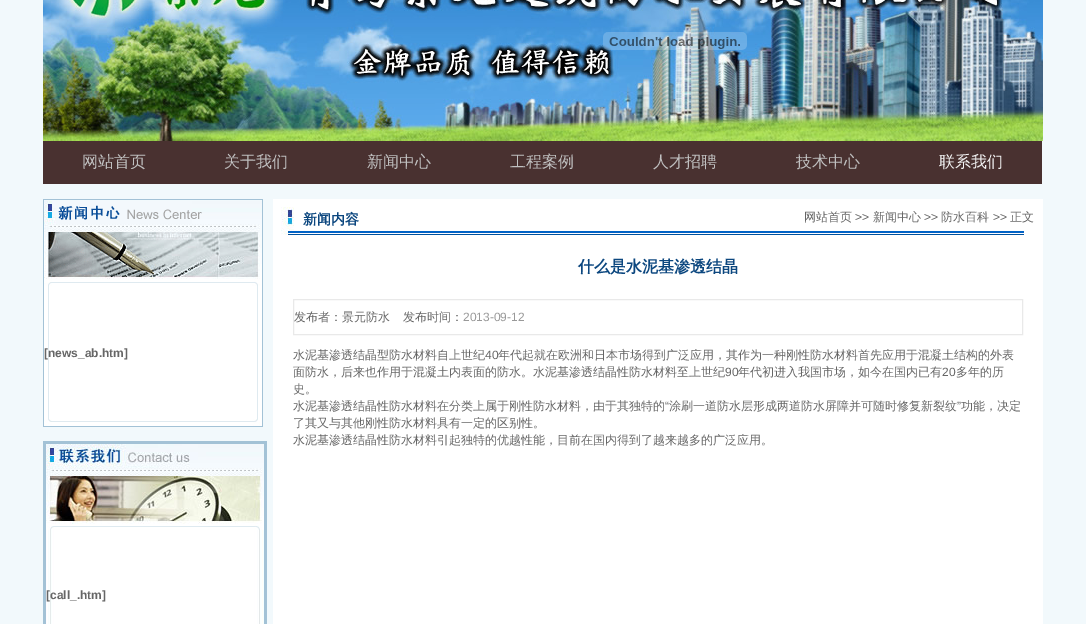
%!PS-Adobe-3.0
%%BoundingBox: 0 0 1086 624
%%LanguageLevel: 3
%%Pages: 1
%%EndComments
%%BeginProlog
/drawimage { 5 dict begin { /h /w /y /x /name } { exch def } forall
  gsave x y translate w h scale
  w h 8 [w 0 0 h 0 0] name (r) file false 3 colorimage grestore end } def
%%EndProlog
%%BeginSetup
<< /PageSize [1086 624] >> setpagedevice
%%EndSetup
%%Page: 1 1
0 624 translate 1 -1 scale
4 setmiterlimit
0.949 0.976 0.988 setrgbcolor
0 0 1086 624 rectfill
(images/2.raw) 43 0 1000 141 drawimage
(images/1.raw) 603 32 144 18 drawimage
0.286 0.192 0.188 setrgbcolor
43 141 999 43 rectfill
0.639 0.761 0.839 setrgbcolor
43 199 220 228 rectfill
0.949 0.976 0.988 setrgbcolor
44 200 218 1 rectfill
(images/3.raw) 44 201 218 78 drawimage
(images/4.raw) 44 279 218 7 drawimage
(images/5.raw) 44 286 218 133 drawimage
(images/6.raw) 44 419 218 7 drawimage
0.639 0.761 0.839 setrgbcolor
43 441 224 183 rectfill
(images/7.raw) 46 444 218 81 drawimage
(images/8.raw) 46 525 218 5 drawimage
(images/9.raw) 46 530 218 94 drawimage
1 setgray
273 199 770 425 rectfill
(images/10.raw) 281 207 743 28 drawimage
0.914 setgray
293.5 299.5 729 35 rectstroke
/WenQuanYiZenHei-Medium [16 0 0 -16 0 0] selectfont
0.753 setgray
82 167 moveto (网站首页) show
224 167 moveto (关于我们) show
367 167 moveto (新闻中心) show
510 167 moveto (工程案例) show
653 167 moveto (人才招聘) show
796 167 moveto (技术中心) show
0.953 setgray
939 167 moveto (联系我们) show
/LiberationSans-Bold [12 0 0 -12 0 0] selectfont
0.4 setgray
44 357 moveto ([news_ab.htm]) show
46 599 moveto ([call_.htm]) show
/WenQuanYiZenHei-Bold [14 0 0 -14 0 0] selectfont
0.047 0.278 0.498 setrgbcolor
303 224 moveto (新闻内容) show
/WenQuanYiZenHei-Medium [12 0 0 -12 0 0] selectfont
0.4 setgray
804 221 moveto (网站首页) show
/LiberationSans-Regular [12 0 0 -12 0 0] selectfont
855 221 moveto (>>) show
/WenQuanYiZenHei-Medium [12 0 0 -12 0 0] selectfont
873 221 moveto (新闻中心) show
/LiberationSans-Regular [12 0 0 -12 0 0] selectfont
924 221 moveto (>>) show
/WenQuanYiZenHei-Medium [12 0 0 -12 0 0] selectfont
941 221 moveto (防水百科) show
/LiberationSans-Regular [12 0 0 -12 0 0] selectfont
993 221 moveto (>>) show
/WenQuanYiZenHei-Medium [12 0 0 -12 0 0] selectfont
1010 221 moveto (正文) show
/WenQuanYiZenHei-Bold [16 0 0 -16 0 0] selectfont
0.047 0.278 0.498 setrgbcolor
578 272 moveto (什么是水泥基渗透结晶) show
/WenQuanYiZenHei-Medium [12 0 0 -12 0 0] selectfont
0.4 setgray
294 321 moveto (发布者：景元防水) show
403 321 moveto (发布时间：) show
/LiberationSans-Regular [12 0 0 -12 0 0] selectfont
0.6 setgray
463 321 moveto (2013-09-12) show
/WenQuanYiZenHei-Medium [12 0 0 -12 0 0] selectfont
0.4 setgray
293 359 moveto (水泥基渗透结晶型防水材料自上世纪) show
/LiberationSans-Regular [12 0 0 -12 0 0] selectfont
485 359 moveto (40) show
/WenQuanYiZenHei-Medium [12 0 0 -12 0 0] selectfont
498 359 moveto (年代起就在欧洲和日本市场得到广泛应用，其作为一种刚性防水材料首先应用于混凝土结构的外表) show
293 376 moveto (面防水，后来也作用于混凝土内表面的防水。水泥基渗透结晶性防水材料至上世纪) show
/LiberationSans-Regular [12 0 0 -12 0 0] selectfont
725 376 moveto (90) show
/WenQuanYiZenHei-Medium [12 0 0 -12 0 0] selectfont
738 376 moveto (年代初进入我国市场，如今在国内已有) show
/LiberationSans-Regular [12 0 0 -12 0 0] selectfont
942 376 moveto (20) show
/WenQuanYiZenHei-Medium [12 0 0 -12 0 0] selectfont
956 376 moveto (多年的历) show
293 393 moveto (史。) show
293 410 moveto (水泥基渗透结晶性防水材料在分类上属于刚性防水材料，由于其独特的) show
/LiberationSans-Regular [12 0 0 -12 0 0] selectfont
665 410 moveto (“) show
/WenQuanYiZenHei-Medium [12 0 0 -12 0 0] selectfont
669 410 moveto (涂刷一道防水层形成两道防水屏障并可随时修复新裂纹) show
/LiberationSans-Regular [12 0 0 -12 0 0] selectfont
957 410 moveto (”) show
/WenQuanYiZenHei-Medium [12 0 0 -12 0 0] selectfont
961 410 moveto (功能，决定) show
293 427 moveto (了其又与其他刚性防水材料具有一定的区别性。) show
293 444 moveto (水泥基渗透结晶性防水材料引起独特的优越性能，目前在国内得到了越来越多的广泛应用。) show
showpage
%%EOF
